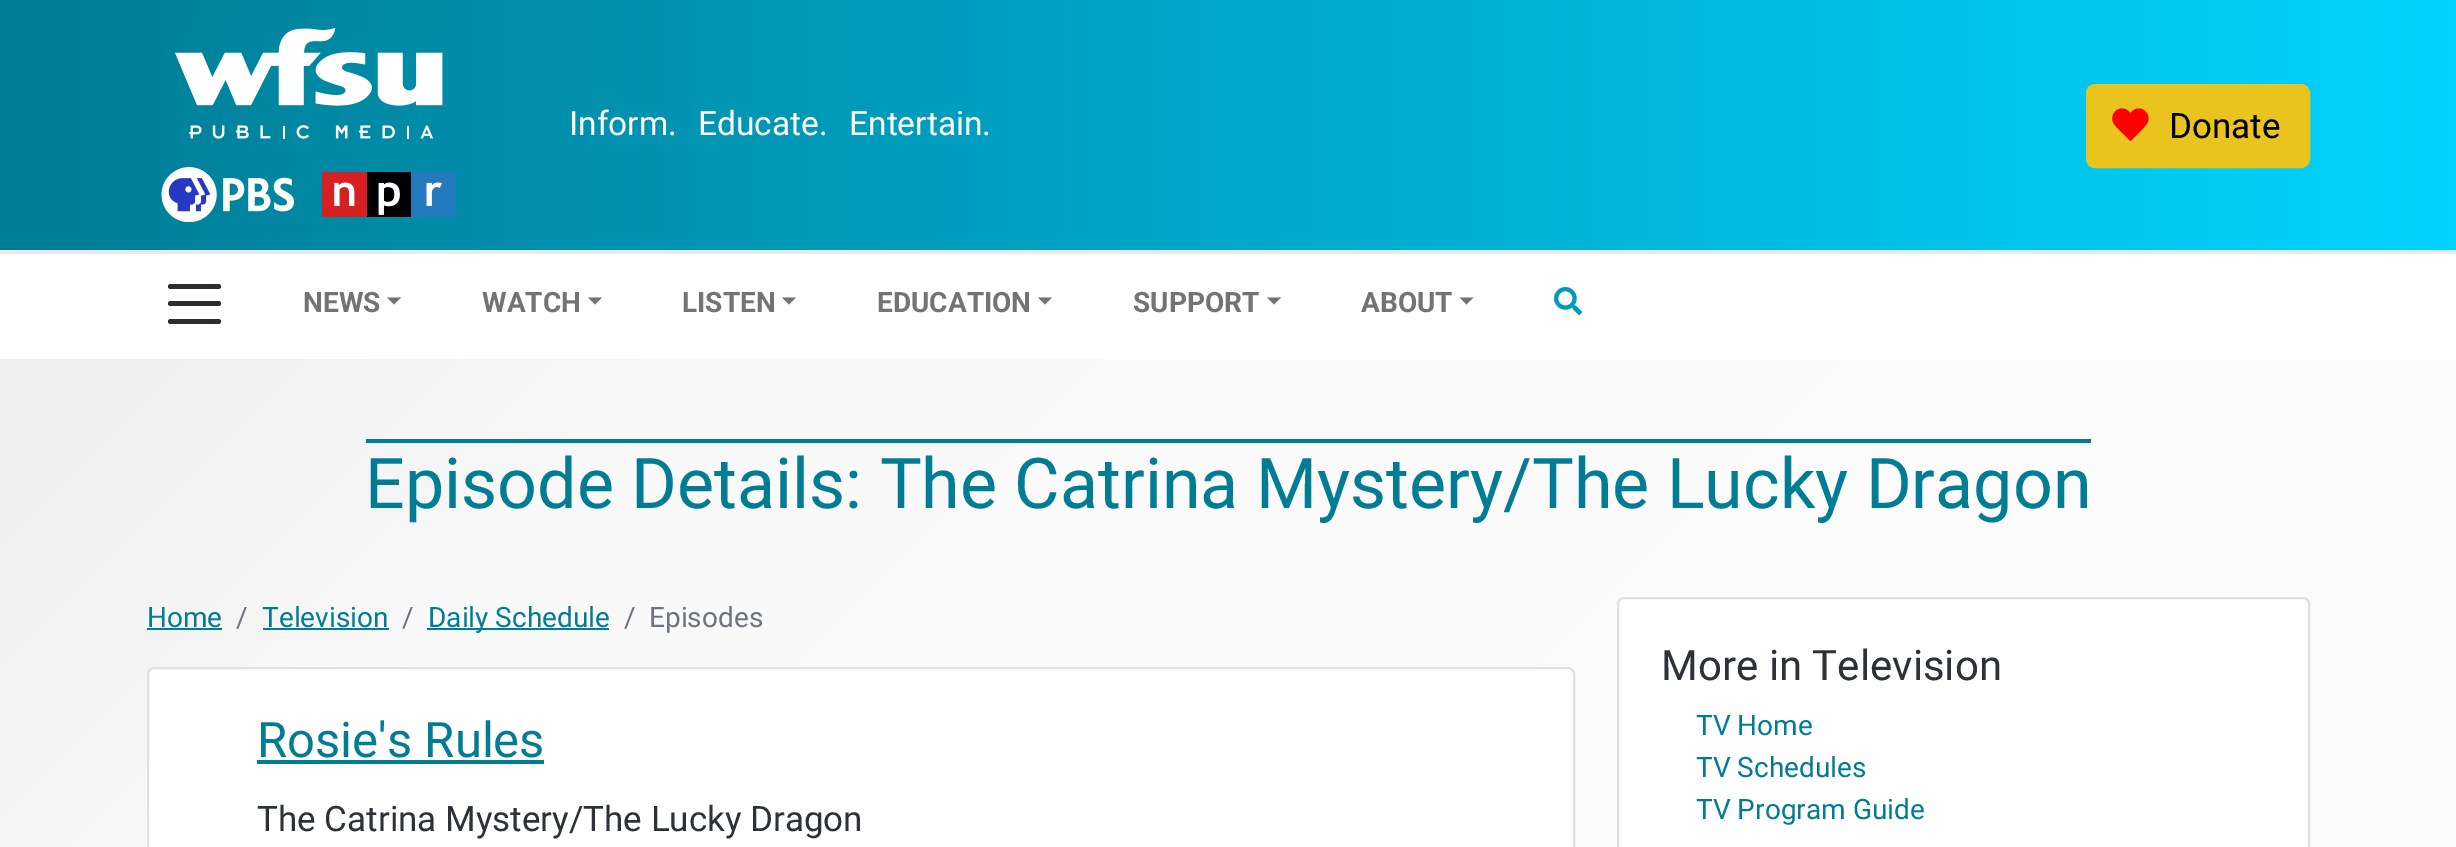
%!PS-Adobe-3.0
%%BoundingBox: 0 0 2456 847
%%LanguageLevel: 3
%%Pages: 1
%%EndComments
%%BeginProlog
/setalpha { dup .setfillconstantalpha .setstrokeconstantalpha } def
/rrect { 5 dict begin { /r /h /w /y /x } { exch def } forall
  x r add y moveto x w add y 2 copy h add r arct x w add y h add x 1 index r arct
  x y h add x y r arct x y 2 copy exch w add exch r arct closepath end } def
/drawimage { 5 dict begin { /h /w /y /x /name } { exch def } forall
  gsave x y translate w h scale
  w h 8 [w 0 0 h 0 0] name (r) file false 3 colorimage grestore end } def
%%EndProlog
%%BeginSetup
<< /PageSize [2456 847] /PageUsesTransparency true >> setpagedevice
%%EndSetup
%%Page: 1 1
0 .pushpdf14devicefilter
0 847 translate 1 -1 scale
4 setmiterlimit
1 setgray
0 0 2456 847 rectfill
gsave newpath 0 359 moveto 2456 359 lineto 2456 847 lineto 0 847 lineto closepath clip newpath
<< /ShadingType 2 /ColorSpace /DeviceRGB /Coords [403 -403 2055 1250] /Extend [true true] /Function << /FunctionType 3 /Domain [0 1] /Functions [<< /FunctionType 2 /Domain [0 1] /C0 [0.914 0.914 0.914] /C1 [0.976 0.976 0.976] /N 1 >> << /FunctionType 2 /Domain [0 1] /C0 [0.976 0.976 0.976] /C1 [0.988 0.988 0.988] /N 1 >> << /FunctionType 2 /Domain [0 1] /C0 [0.988 0.988 0.988] /C1 [0.988 0.988 0.988] /N 1 >>] /Bounds [0.33 0.95] /Encode [0 1 0 1 0 1] >> >> shfill grestore
gsave newpath 0 0 moveto 2456 0 lineto 2456 250 lineto 0 250 lineto closepath clip newpath
<< /ShadingType 2 /ColorSpace /DeviceRGB /Coords [0 125 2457 125] /Extend [true true] /Function << /FunctionType 3 /Domain [0 1] /Functions [<< /FunctionType 2 /Domain [0 1] /C0 [0 0.486 0.584] /C1 [0 0.608 0.729] /N 1 >> << /FunctionType 2 /Domain [0 1] /C0 [0 0.608 0.729] /C1 [0 0.831 1] /N 1 >>] /Bounds [0.35] /Encode [0 1 0 1] >> >> shfill grestore
0.914 setgray
0 250 2456 4 rectfill
(images/1.raw) 161 28 295 194 drawimage
0.914 0.765 0.118 setrgbcolor
2087 85 222 82 8 rrect gsave fill grestore
2 setlinewidth
stroke
1 0 0 setrgbcolor
newpath 2115 111.5 moveto 2119 107.5 2125 107.5 2129 111.5 curveto 2144.5 127 lineto 2130.5 141 lineto 2115 125.5 lineto 2111.5 121.5 2111.5 115.5 2115 111.5 curveto closepath fill
newpath 2145.5 111.5 moveto 2149.5 115.5 2149.5 121.5 2145.5 125.5 curveto 2130.5 141 lineto 2116.5 127 lineto 2132 111.5 lineto 2135.5 107.5 2142 107.5 2145.5 111.5 curveto closepath fill
0.192 0.173 0.173 setrgbcolor
168 284 53 5 2.5 rrect fill
168 301 53 5 2.5 rrect fill
168 319 53 5 2.5 rrect fill
0.451 setgray
newpath 387 297.5 moveto 401 297.5 lineto 394 304.5 lineto closepath fill
newpath 588 297.5 moveto 602 297.5 lineto 595 304.5 lineto closepath fill
newpath 782 297.5 moveto 796 297.5 lineto 789 304.5 lineto closepath fill
newpath 1038 297.5 moveto 1052 297.5 lineto 1045 304.5 lineto closepath fill
newpath 1267 297.5 moveto 1281 297.5 lineto 1274 304.5 lineto closepath fill
newpath 1459.5 297.5 moveto 1473.5 297.5 lineto 1466.5 304.5 lineto closepath fill
(images/2.raw) 1554 287 28 28 drawimage
0 0.486 0.584 setrgbcolor
366 439 1725 4 rectfill
147 628 75 2 rectfill
263 628 126 2 rectfill
427 628 182 2 rectfill
1 setgray
147 667 1428 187 7 rrect fill
0.12 setalpha
0 setgray
148 668 1426 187 6 rrect stroke
1 setalpha
0 0.486 0.584 setrgbcolor
257 760 287 4 rectfill
1 setgray
1618 598 691 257 6 rrect gsave fill grestore
0.875 setgray
stroke
/Roboto-Regular [33.5 0 0 -33.5 0 0] selectfont
1 setgray
569 135 moveto (Inform.) show
698 135 moveto (Educate.) show
849 135 moveto (Entertain.) show
/Roboto-Regular [35 0 0 -35 0 0] selectfont
0 setgray
2169 138 moveto (Donate) show
/Roboto-Bold [28 0 0 -28 0 0] selectfont
0.451 setgray
303 312 moveto (NEWS) show
482 312 moveto (WATCH) show
682 312 moveto (LISTEN) show
877 312 moveto (EDUCATION) show
1133 312 moveto (SUPPORT) show
1361 312 moveto (ABOUT) show
/Roboto-Regular [70 0 0 -70 0 0] selectfont
0 0.486 0.584 setrgbcolor
365 508 moveto (Episode Details: The Catrina Mystery/The Lucky Dragon) show
/Roboto-Regular [28 0 0 -28 0 0] selectfont
147 627 moveto (Home) show
0.424 0.459 0.49 setrgbcolor
236 627 moveto (/) show
0 0.486 0.584 setrgbcolor
262 627 moveto (Television) show
0.424 0.459 0.49 setrgbcolor
402 627 moveto (/) show
0 0.486 0.584 setrgbcolor
428 627 moveto (Daily Schedule) show
0.424 0.459 0.49 setrgbcolor
624 627 moveto (/) show
649 627 moveto (Episodes) show
/Roboto-Regular [49 0 0 -49 0 0] selectfont
0 0.486 0.584 setrgbcolor
257 757 moveto (Rosie's Rules) show
/Roboto-Regular [35 0 0 -35 0 0] selectfont
0.173 0.196 0.216 setrgbcolor
257 831 moveto (The Catrina Mystery/The Lucky Dragon) show
/Roboto-Regular [42 0 0 -42 0 0] selectfont
1661 680 moveto (More in Television) show
/Roboto-Regular [28 0 0 -28 0 0] selectfont
0 0.486 0.584 setrgbcolor
1696 735 moveto (TV Home) show
1696 777 moveto (TV Schedules) show
1696 819 moveto (TV Program Guide) show
.poppdf14devicefilter showpage
%%EOF
